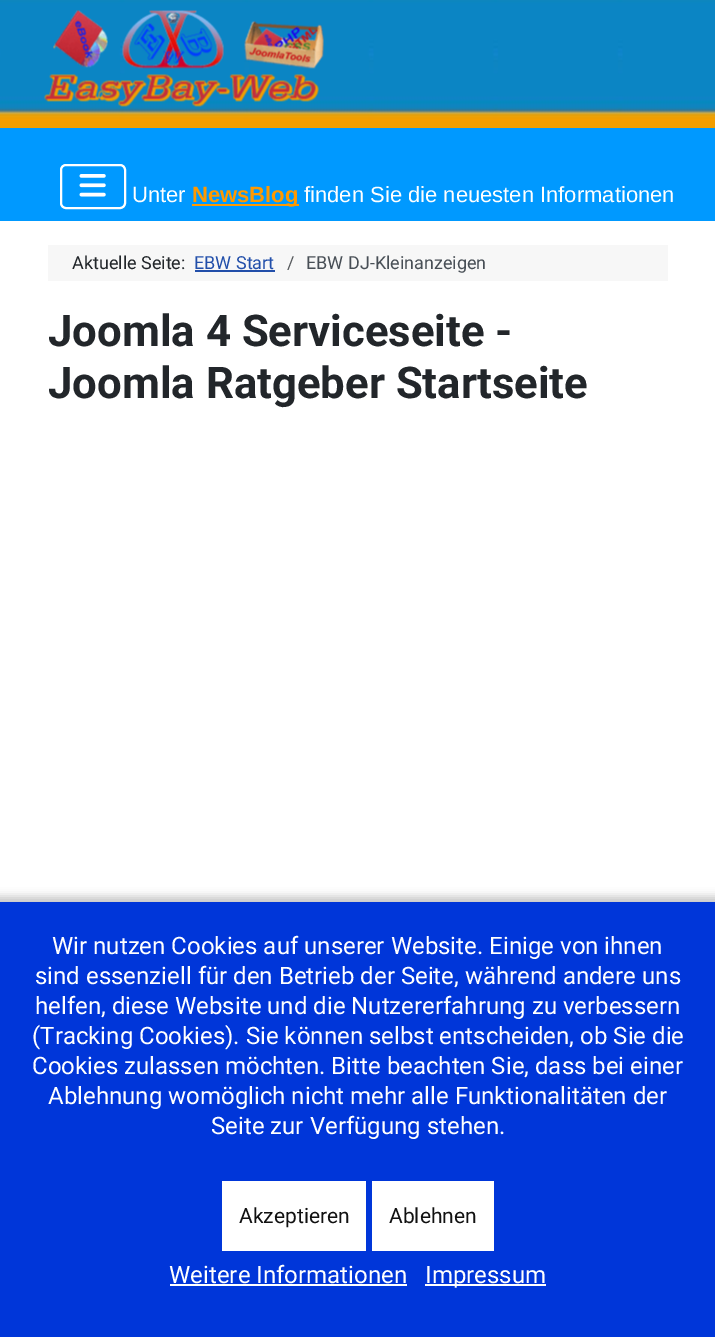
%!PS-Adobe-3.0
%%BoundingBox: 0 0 715 1337
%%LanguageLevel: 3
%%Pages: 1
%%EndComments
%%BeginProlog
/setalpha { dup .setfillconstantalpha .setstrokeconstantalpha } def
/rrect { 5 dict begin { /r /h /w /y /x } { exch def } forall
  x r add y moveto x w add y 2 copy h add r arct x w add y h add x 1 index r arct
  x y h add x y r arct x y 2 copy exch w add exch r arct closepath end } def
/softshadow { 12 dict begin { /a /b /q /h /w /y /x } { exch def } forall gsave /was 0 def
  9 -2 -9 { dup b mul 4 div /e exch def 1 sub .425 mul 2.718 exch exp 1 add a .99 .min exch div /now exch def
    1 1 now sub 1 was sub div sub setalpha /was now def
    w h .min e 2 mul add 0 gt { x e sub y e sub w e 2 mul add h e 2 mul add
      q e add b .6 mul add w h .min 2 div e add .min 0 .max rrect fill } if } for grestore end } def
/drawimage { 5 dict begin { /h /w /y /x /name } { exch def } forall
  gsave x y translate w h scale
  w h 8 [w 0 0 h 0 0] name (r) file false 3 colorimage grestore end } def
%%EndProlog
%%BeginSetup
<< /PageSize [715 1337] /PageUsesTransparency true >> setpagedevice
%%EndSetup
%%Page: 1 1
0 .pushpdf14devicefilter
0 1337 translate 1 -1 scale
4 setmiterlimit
1 setgray
0 0 715 1337 rectfill
0 0.6 1 setrgbcolor
0 128 715 93 rectfill
1 setgray
2 setlinewidth
61 165 64 43 5 rrect stroke
(images/1.raw) 79 174 27 23 drawimage
(images/2.raw) 0 0 715 128 drawimage
(images/3.raw) 44 10 280 97 drawimage
1 0.6 0 setrgbcolor
192 204 107 2 rectfill
0.969 setgray
48 245 620 36 rectfill
0.133 0.31 0.667 setrgbcolor
195 270 80 2 rectfill
0 setgray
-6 896 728 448 0 4 0.21 softshadow
0 0.212 0.851 setrgbcolor
0 902 715 435 rectfill
1 setgray
222 1181 144 70 rectfill
372 1181 122 70 rectfill
170 1284 237 2 rectfill
425 1284 121 2 rectfill
/LiberationSans-Regular [22 0 0 -22 0 0] selectfont
132 202 moveto (Unter) show
/LiberationSans-Bold [22 0 0 -22 0 0] selectfont
1 0.6 0 setrgbcolor
192 202 moveto (NewsBlog) show
/LiberationSans-Regular [22 0 0 -22 0 0] selectfont
1 setgray
304 202 moveto (finden Sie die neuesten Informationen) show
/Roboto-Regular [18 0 0 -18 0 0] selectfont
0.133 0.149 0.165 setrgbcolor
72 269 moveto (Aktuelle Seite:) show
0.133 0.31 0.667 setrgbcolor
194 269 moveto (EBW Start) show
0.341 0.353 0.365 setrgbcolor
287 269 moveto (/) show
0.282 0.31 0.337 setrgbcolor
306 269 moveto (EBW DJ-Kleinanzeigen) show
/Roboto-Bold [43.75 0 0 -43.75 0 0] selectfont
0.133 0.149 0.165 setrgbcolor
48 346 moveto (Joomla 4 Serviceseite -) show
48 398 moveto (Joomla Ratgeber Startseite) show
/Roboto-Regular [24 0 0 -24 0 0] selectfont
1 setgray
52 954 moveto (Wir nutzen Cookies auf unserer Website. Einige von ihnen) show
35 984 moveto (sind essenziell für den Betrieb der Seite, während andere uns) show
35 1014 moveto (helfen, diese Website und die Nutzererfahrung zu verbessern) show
32 1044 moveto (\(Tracking Cookies\). Sie können selbst entscheiden, ob Sie die) show
32 1074 moveto (Cookies zulassen möchten. Bitte beachten Sie, dass bei einer) show
48 1104 moveto (Ablehnung womöglich nicht mehr alle Funktionalitäten der) show
211 1134 moveto (Seite zur Verfügung stehen.) show
/Roboto-Regular [21 0 0 -21 0 0] selectfont
0.067 setgray
239 1223 moveto (Akzeptieren) show
389 1223 moveto (Ablehnen) show
/Roboto-Regular [24 0 0 -24 0 0] selectfont
1 setgray
169 1283 moveto (Weitere Informationen) show
425 1283 moveto (Impressum) show
.poppdf14devicefilter showpage
%%EOF
